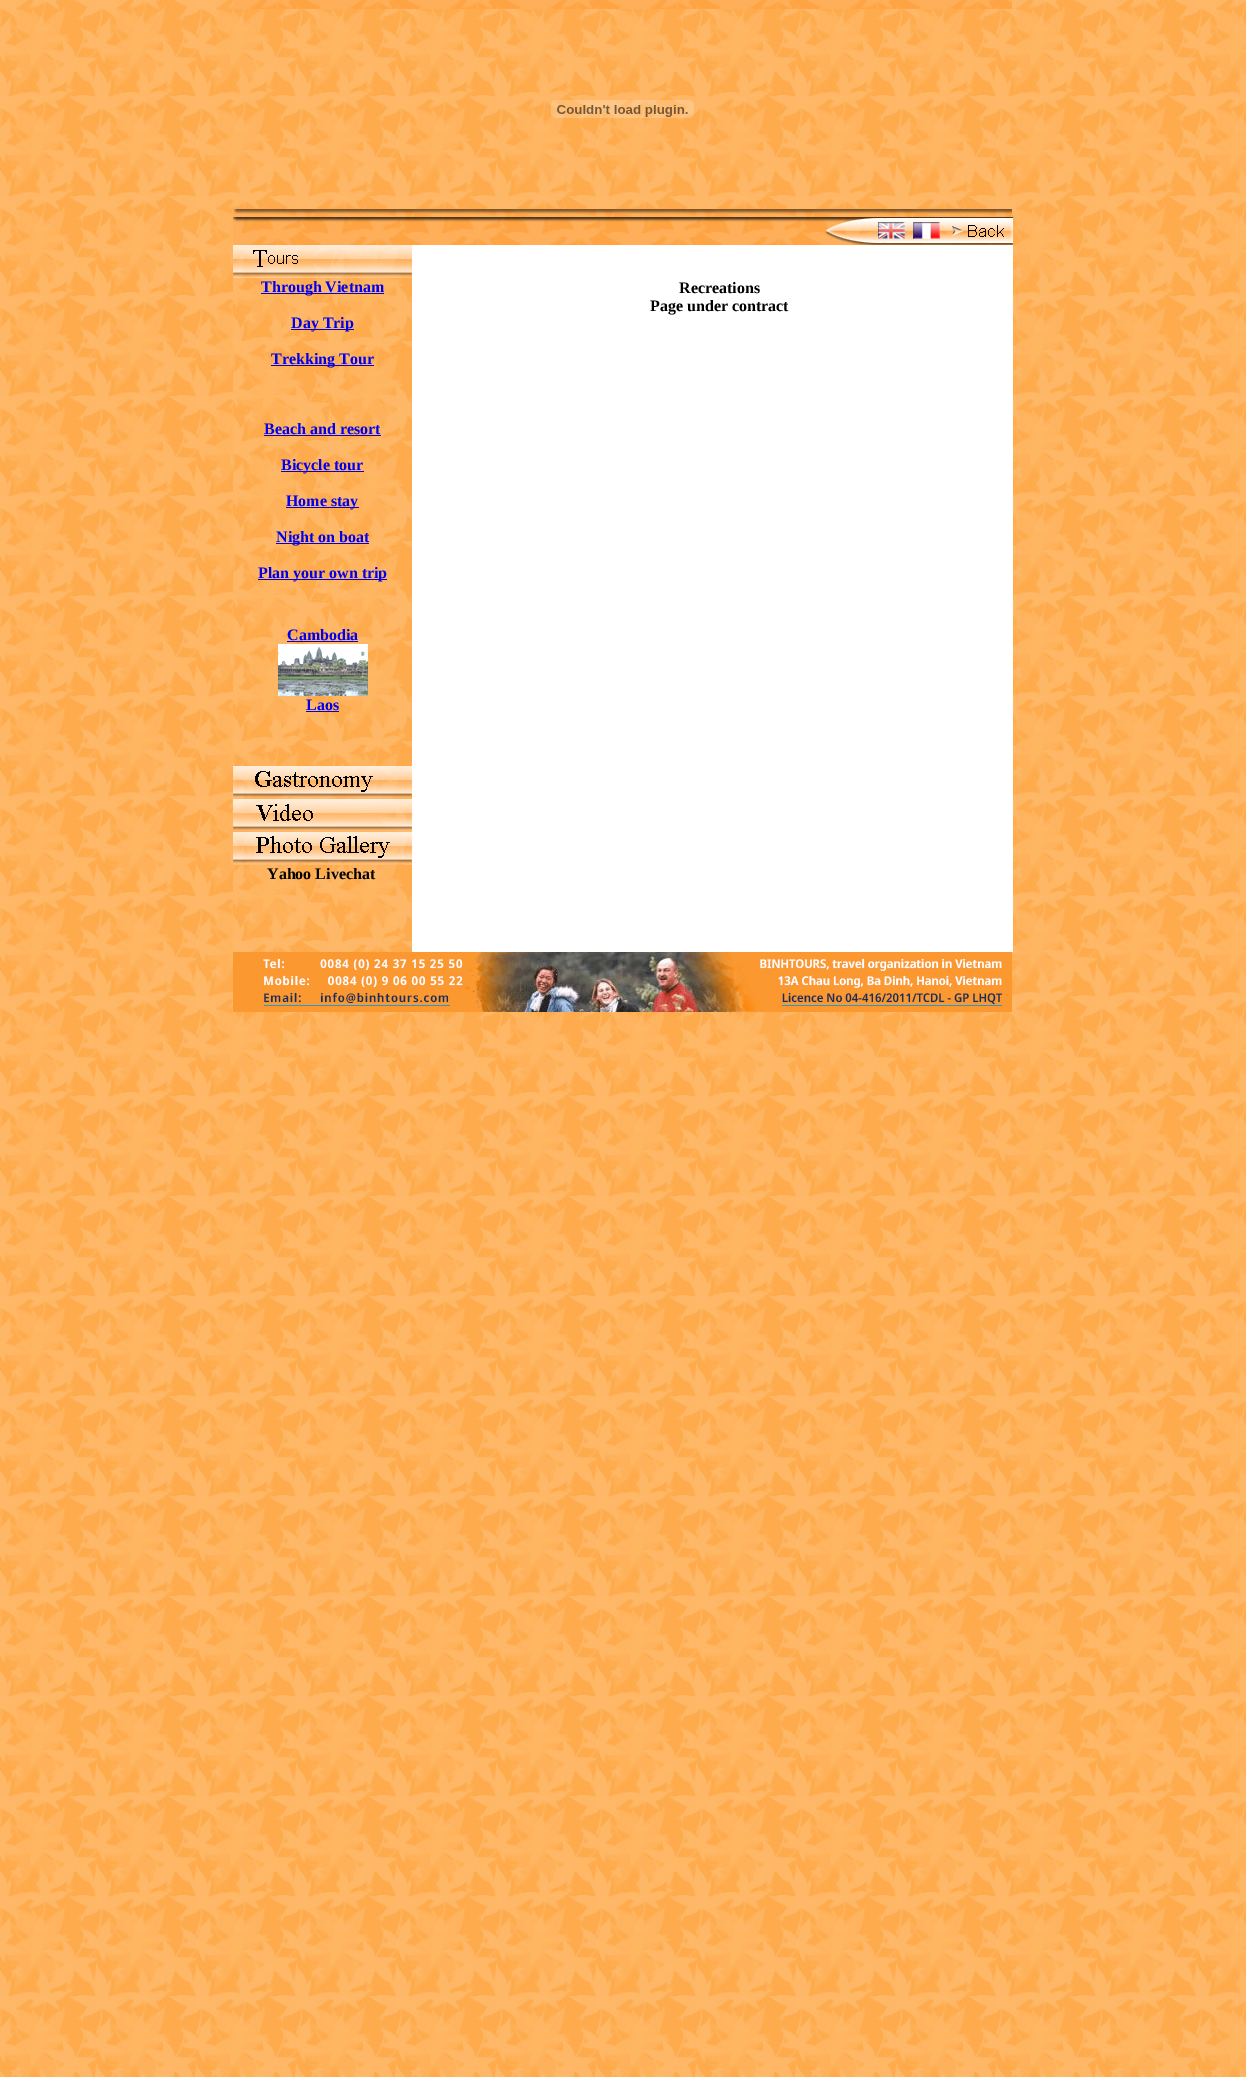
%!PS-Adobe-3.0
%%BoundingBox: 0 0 1246 2077
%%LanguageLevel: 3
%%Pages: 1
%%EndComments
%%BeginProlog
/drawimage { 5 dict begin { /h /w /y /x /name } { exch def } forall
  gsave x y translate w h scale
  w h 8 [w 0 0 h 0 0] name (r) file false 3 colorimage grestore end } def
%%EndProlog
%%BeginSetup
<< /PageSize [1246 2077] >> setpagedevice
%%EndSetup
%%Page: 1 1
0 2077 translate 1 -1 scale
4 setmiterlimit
1 setgray
0 0 1246 2077 rectfill
(images/1.raw) 0 0 1246 2077 drawimage
(images/2.raw) 233 0 779 9 drawimage
(images/3.raw) 551 100 143 18 drawimage
(images/4.raw) 233 209 779 8 drawimage
(images/5.raw) 233 217 592 28 drawimage
(images/6.raw) 825 217 48 28 drawimage
(images/7.raw) 873 217 36 28 drawimage
(images/8.raw) 909 217 36 28 drawimage
(images/9.raw) 945 217 68 28 drawimage
(images/10.raw) 233 278 179 674 drawimage
(images/11.raw) 233 245 179 33 drawimage
0 0 0.933 setrgbcolor
261 293 123 1 rectfill
291 329 63 1 rectfill
271 365 103 1 rectfill
264 435 117 1 rectfill
281 471 83 1 rectfill
286 507 73 1 rectfill
276 543 93 1 rectfill
258 579 129 1 rectfill
287 641 71 1 rectfill
(images/12.raw) 278 644 90 52 drawimage
306 711 33 1 rectfill
(images/13.raw) 233 766 179 33 drawimage
(images/14.raw) 233 799 179 33 drawimage
(images/15.raw) 233 832 179 33 drawimage
1 setgray
412 245 601 707 rectfill
(images/16.raw) 233 952 779 60 drawimage
/LiberationSerif-Bold [16 0 0 -16 0 0] selectfont
0 0 0.933 setrgbcolor
261 292 moveto (Through Vietnam) show
291 328 moveto (Day Trip) show
271 364 moveto (Trekking Tour) show
264 434 moveto (Beach and resort) show
281 470 moveto (Bicycle tour) show
286 506 moveto (Home stay) show
276 542 moveto (Night on boat) show
258 578 moveto (Plan your own trip) show
287 640 moveto (Cambodia) show
306 710 moveto (Laos) show
0 setgray
267 879 moveto (Yahoo Livechat) show
679 293 moveto (Recreations) show
650 311 moveto (Page under contract) show
showpage
%%EOF
